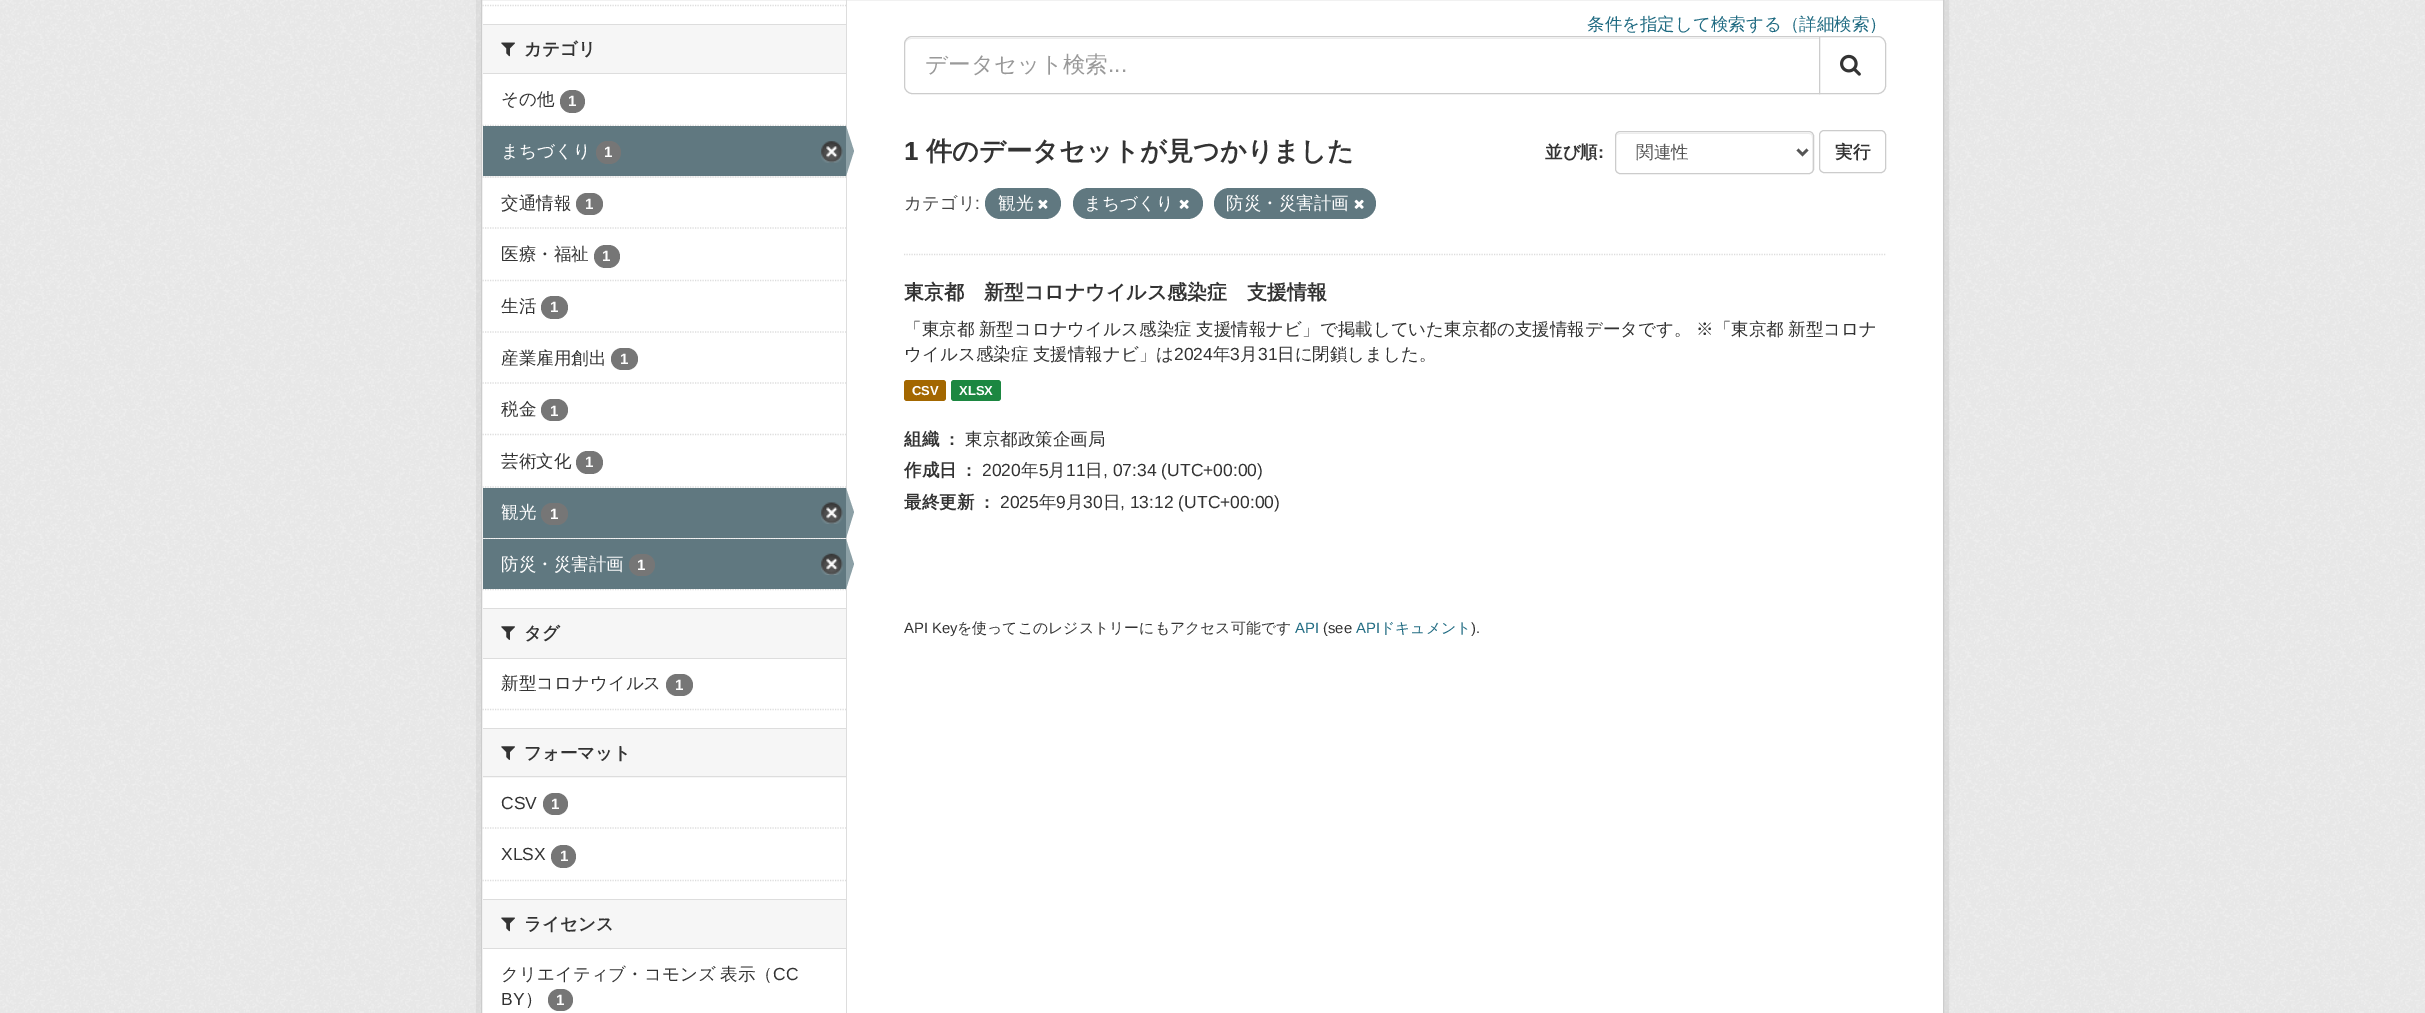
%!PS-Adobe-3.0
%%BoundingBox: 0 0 2425 1013
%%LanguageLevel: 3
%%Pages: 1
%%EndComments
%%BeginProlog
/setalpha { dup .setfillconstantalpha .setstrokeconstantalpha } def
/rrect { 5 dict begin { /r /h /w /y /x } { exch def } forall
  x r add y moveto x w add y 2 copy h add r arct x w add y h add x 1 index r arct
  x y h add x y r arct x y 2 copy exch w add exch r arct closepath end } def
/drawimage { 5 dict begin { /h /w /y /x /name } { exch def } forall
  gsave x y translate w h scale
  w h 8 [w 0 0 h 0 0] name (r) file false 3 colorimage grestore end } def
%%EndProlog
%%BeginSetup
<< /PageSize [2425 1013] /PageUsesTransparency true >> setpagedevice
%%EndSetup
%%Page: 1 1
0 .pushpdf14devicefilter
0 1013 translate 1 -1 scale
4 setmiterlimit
0.933 setgray
0 0 2425 1013 rectfill
(images/1.raw) 0 0 2425 1013 drawimage
0.05 setalpha
0 setgray
5 setlinewidth
478.5 -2.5 1468 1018 rectstroke
1 setalpha
1 setgray
newpath 481.5 -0.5 moveto 1943.5 -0.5 lineto 1943.5 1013.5 lineto 481.5 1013.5 lineto closepath gsave fill grestore
0.8 setgray
1 setlinewidth
stroke
0.867 setgray
1.2 setlinewidth
[1.25 1.25] 0 setdash
newpath 482.5 5.5 moveto 846 5.5 lineto stroke
0.965 setgray
483 25 363 48 rectfill
0.867 setgray
483 24 363 1 rectfill
483 73 363 1 rectfill
(images/2.raw) 501 42 14 15 drawimage
newpath 482.5 125.5 moveto 846 125.5 lineto stroke
0.463 setgray
560 90 25 23 11.5 rrect fill
0.965 setgray
483 176 363 2 rectfill
0.867 setgray
newpath 482.5 177 moveto 846 177 lineto stroke
0.376 0.471 0.502 setrgbcolor
483 126 363 50 rectfill
0.463 setgray
596 141 25 23 11.5 rrect fill
(images/3.raw) 821 141 22 22 drawimage
0.867 setgray
846 0 1 1013 rectfill
0.549 0.627 0.651 setrgbcolor
newpath 846 176 moveto 846 126 lineto 854 151 lineto closepath fill
0.867 setgray
newpath 482.5 228 moveto 846 228 lineto stroke
0.463 setgray
576 193 27 22 11 rrect fill
0.867 setgray
newpath 482.5 280.5 moveto 846 280.5 lineto stroke
0.463 setgray
594 245 26 23 11.5 rrect fill
0.867 setgray
newpath 482.5 332 moveto 846 332 lineto stroke
0.463 setgray
541 296 27 23 11.5 rrect fill
0.867 setgray
newpath 482.5 383 moveto 846 383 lineto stroke
0.463 setgray
611 348 27 22 11 rrect fill
0.867 setgray
newpath 482.5 434.5 moveto 846 434.5 lineto stroke
0.463 setgray
541 399 27 22 11 rrect fill
0.867 setgray
newpath 482.5 487 moveto 846 487 lineto stroke
0.463 setgray
576 451 27 23 11.5 rrect fill
0.965 setgray
483 538 363 1 rectfill
0.867 setgray
newpath 482.5 538 moveto 846 538 lineto stroke
0.376 0.471 0.502 setrgbcolor
483 488 363 50 rectfill
0.463 setgray
541 503 27 22 11 rrect fill
(images/4.raw) 821 502 22 22 drawimage
0.549 0.627 0.651 setrgbcolor
newpath 846 538 moveto 846 488 lineto 854 512 lineto closepath fill
0.867 setgray
newpath 482.5 589.5 moveto 846 589.5 lineto stroke
0.376 0.471 0.502 setrgbcolor
483 539 363 50 rectfill
0.463 setgray
629 554 26 22 11 rrect fill
(images/5.raw) 821 553 22 22 drawimage
0.549 0.627 0.651 setrgbcolor
newpath 846 589 moveto 846 539 lineto 854 564 lineto closepath fill
0.965 setgray
483 609 363 49 rectfill
0.867 setgray
483 608 363 1 rectfill
483 658 363 1 rectfill
(images/6.raw) 501 626 14 14 drawimage
0.463 setgray
666 674 27 22 11 rrect fill
0.867 setgray
newpath 482.5 709.5 moveto 846 709.5 lineto stroke
0.965 setgray
483 729 363 49 rectfill
0.867 setgray
483 728 363 1 rectfill
483 776 363 1 rectfill
(images/6.raw) 501 746 14 14 drawimage
newpath 482.5 828 moveto 846 828 lineto stroke
0.463 setgray
543 793 25 22 11 rrect fill
551 845 25 23 11.5 rrect fill
0.867 setgray
newpath 482.5 880.5 moveto 846 880.5 lineto stroke
0.965 setgray
483 900 363 48 rectfill
0.867 setgray
483 899 363 1 rectfill
483 948 363 1 rectfill
(images/2.raw) 501 917 14 15 drawimage
0.463 setgray
548 989 25 22 11 rrect fill
0.867 setgray
newpath 904 254.5 moveto 1886 254.5 lineto stroke
0.925 setgray
newpath 911 39 moveto 1819 39 lineto 1819 38 lineto 911 38 lineto 908 38 905 41 905 44 curveto 905 45 lineto 905 42 908 39 911 39 curveto closepath fill
0.8 setgray
1 setlinewidth
[] 0 setdash
newpath 912 36.5 moveto 1819.5 36.5 lineto 1819.5 93.5 lineto 912 93.5 lineto 908 93.5 904.5 90 904.5 86 curveto 904.5 44 lineto 904.5 40 908 36.5 912 36.5 curveto closepath stroke
1 setgray
newpath 1819.5 36.5 moveto 1878 36.5 lineto 1882 36.5 1885.5 40 1885.5 44 curveto 1885.5 86 lineto 1885.5 90 1882 93.5 1878 93.5 curveto 1819.5 93.5 lineto closepath gsave fill grestore
0.8 setgray
stroke
(images/7.raw) 1840 54 21 22 drawimage
0.925 setgray
newpath 1620 134 moveto 1809 134 lineto 1811 134 1812 135 1812 138 curveto 1812 172 lineto 1812 171 1813 170 1813 169 curveto 1813 137 lineto 1813 135 1811 133 1809 133 curveto 1620 133 lineto 1618 133 1616 135 1616 137 curveto 1616 138 lineto 1616 135 1618 134 1620 134 curveto closepath fill
0.8 setgray
1615.5 131.5 198 42 4.5 rrect stroke
0.333 setgray
2.5 setlinewidth
newpath 1797.5 149.5 moveto 1802.5 154.5 lineto 1807.5 149.5 lineto stroke
0.8 setgray
1 setlinewidth
1819.5 130.5 66 42 4.5 rrect stroke
0.376 0.471 0.502 setrgbcolor
985 188 76 31 15.5 rrect fill
(images/8.raw) 1038 199 10 10 drawimage
1073 188 130 31 15.5 rrect fill
(images/9.raw) 1179 199 10 10 drawimage
1214 188 162 31 15.5 rrect fill
(images/9.raw) 1354 199 10 10 drawimage
0.639 0.404 0 setrgbcolor
904 380 42 21 3 rrect fill
0.11 0.529 0.255 setrgbcolor
951 380 50 21 3 rrect fill
/WenQuanYiZenHei-Bold [17.5 0 0 -17.5 0 0] selectfont
0.2 setgray
524 55 moveto (カテゴリ) show
/WenQuanYiZenHei-Medium [17.5 0 0 -17.5 0 0] selectfont
501 105 moveto (その他) show
/LiberationSans-Bold [15 0 0 -15 0 0] selectfont
1 setgray
568 106 moveto (1) show
/WenQuanYiZenHei-Medium [17.5 0 0 -17.5 0 0] selectfont
501 157 moveto (まちづくり) show
/LiberationSans-Bold [15 0 0 -15 0 0] selectfont
604 157 moveto (1) show
/WenQuanYiZenHei-Medium [17.5 0 0 -17.5 0 0] selectfont
0.2 setgray
501 209 moveto (交通情報) show
/LiberationSans-Bold [15 0 0 -15 0 0] selectfont
1 setgray
585 209 moveto (1) show
/WenQuanYiZenHei-Medium [17.5 0 0 -17.5 0 0] selectfont
0.2 setgray
501 260 moveto (医療・福祉) show
/LiberationSans-Bold [15 0 0 -15 0 0] selectfont
1 setgray
602 261 moveto (1) show
/WenQuanYiZenHei-Medium [17.5 0 0 -17.5 0 0] selectfont
0.2 setgray
501 312 moveto (生活) show
/LiberationSans-Bold [15 0 0 -15 0 0] selectfont
1 setgray
550 312 moveto (1) show
/WenQuanYiZenHei-Medium [17.5 0 0 -17.5 0 0] selectfont
0.2 setgray
501 364 moveto (産業雇用創出) show
/LiberationSans-Bold [15 0 0 -15 0 0] selectfont
1 setgray
620 364 moveto (1) show
/WenQuanYiZenHei-Medium [17.5 0 0 -17.5 0 0] selectfont
0.2 setgray
501 415 moveto (税金) show
/LiberationSans-Bold [15 0 0 -15 0 0] selectfont
1 setgray
550 416 moveto (1) show
/WenQuanYiZenHei-Medium [17.5 0 0 -17.5 0 0] selectfont
0.2 setgray
501 467 moveto (芸術文化) show
/LiberationSans-Bold [15 0 0 -15 0 0] selectfont
1 setgray
585 467 moveto (1) show
/WenQuanYiZenHei-Medium [17.5 0 0 -17.5 0 0] selectfont
501 518 moveto (観光) show
/LiberationSans-Bold [15 0 0 -15 0 0] selectfont
550 519 moveto (1) show
/WenQuanYiZenHei-Medium [17.5 0 0 -17.5 0 0] selectfont
501 570 moveto (防災・災害計画) show
/LiberationSans-Bold [15 0 0 -15 0 0] selectfont
637 570 moveto (1) show
/WenQuanYiZenHei-Bold [17.5 0 0 -17.5 0 0] selectfont
0.2 setgray
524 639 moveto (タグ) show
/WenQuanYiZenHei-Medium [17.5 0 0 -17.5 0 0] selectfont
501 689 moveto (新型コロナウイルス) show
/LiberationSans-Bold [15 0 0 -15 0 0] selectfont
1 setgray
675 690 moveto (1) show
/WenQuanYiZenHei-Bold [17.5 0 0 -17.5 0 0] selectfont
0.2 setgray
524 759 moveto (フォーマット) show
/LiberationSans-Regular [17.5 0 0 -17.5 0 0] selectfont
501 809 moveto (CSV) show
/LiberationSans-Bold [15 0 0 -15 0 0] selectfont
1 setgray
551 809 moveto (1) show
/LiberationSans-Regular [17.5 0 0 -17.5 0 0] selectfont
0.2 setgray
501 860 moveto (XLSX) show
/LiberationSans-Bold [15 0 0 -15 0 0] selectfont
1 setgray
560 861 moveto (1) show
/WenQuanYiZenHei-Bold [17.5 0 0 -17.5 0 0] selectfont
0.2 setgray
524 930 moveto (ライセンス) show
/WenQuanYiZenHei-Medium [17.5 0 0 -17.5 0 0] selectfont
501 980 moveto -0.5 0 32 (クリエイティブ・コモンズ 表示（) widthshow
/LiberationSans-Regular [17.5 0 0 -17.5 0 0] selectfont
773 980 moveto (CC) show
501 1005 moveto (BY) show
/WenQuanYiZenHei-Medium [17.5 0 0 -17.5 0 0] selectfont
525 1005 moveto (）) show
/LiberationSans-Bold [15 0 0 -15 0 0] selectfont
1 setgray
556 1005 moveto (1) show
/WenQuanYiZenHei-Medium [17.5 0 0 -17.5 0 0] selectfont
0.125 0.42 0.51 setrgbcolor
1587 30 moveto (条件を指定して検索する（詳細検索）) show
/WenQuanYiZenHei-Medium [22.5 0 0 -22.5 0 0] selectfont
0.6 setgray
925 72 moveto (データセット検索) show
/LiberationSans-Regular [22.5 0 0 -22.5 0 0] selectfont
1108 72 moveto (...) show
/LiberationSans-Bold [26.25 0 0 -26.25 0 0] selectfont
0.2 setgray
904 160 moveto (1) show
/WenQuanYiZenHei-Bold [26.25 0 0 -26.25 0 0] selectfont
926 160 moveto (件のデータセットが見つかりました) show
/WenQuanYiZenHei-Bold [17.5 0 0 -17.5 0 0] selectfont
1545 158 moveto (並び順) show
/LiberationSans-Bold [17.5 0 0 -17.5 0 0] selectfont
1598 158 moveto (:) show
/WenQuanYiZenHei-Medium [17.5 0 0 -17.5 0 0] selectfont
0.333 setgray
1636 158 moveto (関連性) show
/WenQuanYiZenHei-Bold [17.5 0 0 -17.5 0 0] selectfont
0.2 setgray
1835 158 moveto (実行) show
/WenQuanYiZenHei-Medium [17.5 0 0 -17.5 0 0] selectfont
0.267 setgray
904 209 moveto (カテゴリ) show
/LiberationSans-Regular [17.5 0 0 -17.5 0 0] selectfont
975 209 moveto (:) show
/WenQuanYiZenHei-Medium [17.5 0 0 -17.5 0 0] selectfont
1 setgray
998 209 moveto (観光) show
1084 209 moveto (まちづくり) show
1226 209 moveto (防災・災害計画) show
/WenQuanYiZenHei-Bold [20 0 0 -20 0 0] selectfont
0.2 setgray
904 299 moveto (東京都　新型コロナウイルス感染症　支援情報) show
/WenQuanYiZenHei-Medium [17.5 0 0 -17.5 0 0] selectfont
904 335 moveto -0.5 0 32 (「東京都 新型コロナウイルス感染症 支援情報ナビ」で掲載していた東京都の支援情報データです。 ※「東京都 新型コロナ) widthshow
904 360 moveto -0.5 0 32 (ウイルス感染症 支援情報ナビ」は) widthshow
/LiberationSans-Regular [17.5 0 0 -17.5 0 0] selectfont
1174 360 moveto (2024) show
/WenQuanYiZenHei-Medium [17.5 0 0 -17.5 0 0] selectfont
1213 360 moveto (年) show
/LiberationSans-Regular [17.5 0 0 -17.5 0 0] selectfont
1230 360 moveto (3) show
/WenQuanYiZenHei-Medium [17.5 0 0 -17.5 0 0] selectfont
1240 360 moveto (月) show
/LiberationSans-Regular [17.5 0 0 -17.5 0 0] selectfont
1258 360 moveto (31) show
/WenQuanYiZenHei-Medium [17.5 0 0 -17.5 0 0] selectfont
1277 360 moveto (日に閉鎖しました。) show
/LiberationSans-Bold [13 0 0 -13 0 0] selectfont
1 setgray
912 395 moveto (CSV) show
959 395 moveto (XLSX) show
/WenQuanYiZenHei-Bold [17.5 0 0 -17.5 0 0] selectfont
0.2 setgray
904 445 moveto (組織) show
/LiberationSans-Bold [17.5 0 0 -17.5 0 0] selectfont
949 445 moveto (:) show
/WenQuanYiZenHei-Medium [17.5 0 0 -17.5 0 0] selectfont
965 445 moveto (東京都政策企画局) show
/WenQuanYiZenHei-Bold [17.5 0 0 -17.5 0 0] selectfont
904 476 moveto (作成日) show
/LiberationSans-Bold [17.5 0 0 -17.5 0 0] selectfont
966 476 moveto (:) show
/LiberationSans-Regular [17.5 0 0 -17.5 0 0] selectfont
982 476 moveto (2020) show
/WenQuanYiZenHei-Medium [17.5 0 0 -17.5 0 0] selectfont
1021 476 moveto (年) show
/LiberationSans-Regular [17.5 0 0 -17.5 0 0] selectfont
1039 476 moveto (5) show
/WenQuanYiZenHei-Medium [17.5 0 0 -17.5 0 0] selectfont
1048 476 moveto (月) show
/LiberationSans-Regular [17.5 0 0 -17.5 0 0] selectfont
1066 476 moveto (11) show
/WenQuanYiZenHei-Medium [17.5 0 0 -17.5 0 0] selectfont
1085 476 moveto (日) show
/LiberationSans-Regular [17.5 0 0 -17.5 0 0] selectfont
1103 476 moveto (, 07:34 \(UTC+00:00\)) show
/WenQuanYiZenHei-Bold [17.5 0 0 -17.5 0 0] selectfont
904 508 moveto (最終更新) show
/LiberationSans-Bold [17.5 0 0 -17.5 0 0] selectfont
984 508 moveto (:) show
/LiberationSans-Regular [17.5 0 0 -17.5 0 0] selectfont
1000 508 moveto (2025) show
/WenQuanYiZenHei-Medium [17.5 0 0 -17.5 0 0] selectfont
1039 508 moveto (年) show
/LiberationSans-Regular [17.5 0 0 -17.5 0 0] selectfont
1056 508 moveto (9) show
/WenQuanYiZenHei-Medium [17.5 0 0 -17.5 0 0] selectfont
1066 508 moveto (月) show
/LiberationSans-Regular [17.5 0 0 -17.5 0 0] selectfont
1083 508 moveto (30) show
/WenQuanYiZenHei-Medium [17.5 0 0 -17.5 0 0] selectfont
1103 508 moveto (日) show
/LiberationSans-Regular [17.5 0 0 -17.5 0 0] selectfont
1120 508 moveto (, 13:12 \(UTC+00:00\)) show
/LiberationSans-Regular [14.9 0 0 -14.9 0 0] selectfont
904 633 moveto (API Key) show
/WenQuanYiZenHei-Medium [14.9 0 0 -14.9 0 0] selectfont
957 633 moveto (を使ってこのレジストリーにもアクセス可能です) show
/LiberationSans-Regular [14.9 0 0 -14.9 0 0] selectfont
0.125 0.42 0.51 setrgbcolor
1295 633 moveto (API) show
0.2 setgray
1323 633 moveto (\(see) show
0.125 0.42 0.51 setrgbcolor
1356 633 moveto (API) show
/WenQuanYiZenHei-Medium [14.9 0 0 -14.9 0 0] selectfont
1380 633 moveto (ドキュメント) show
/LiberationSans-Regular [14.9 0 0 -14.9 0 0] selectfont
0.2 setgray
1471 633 moveto (\).) show
.poppdf14devicefilter showpage
%%EOF
